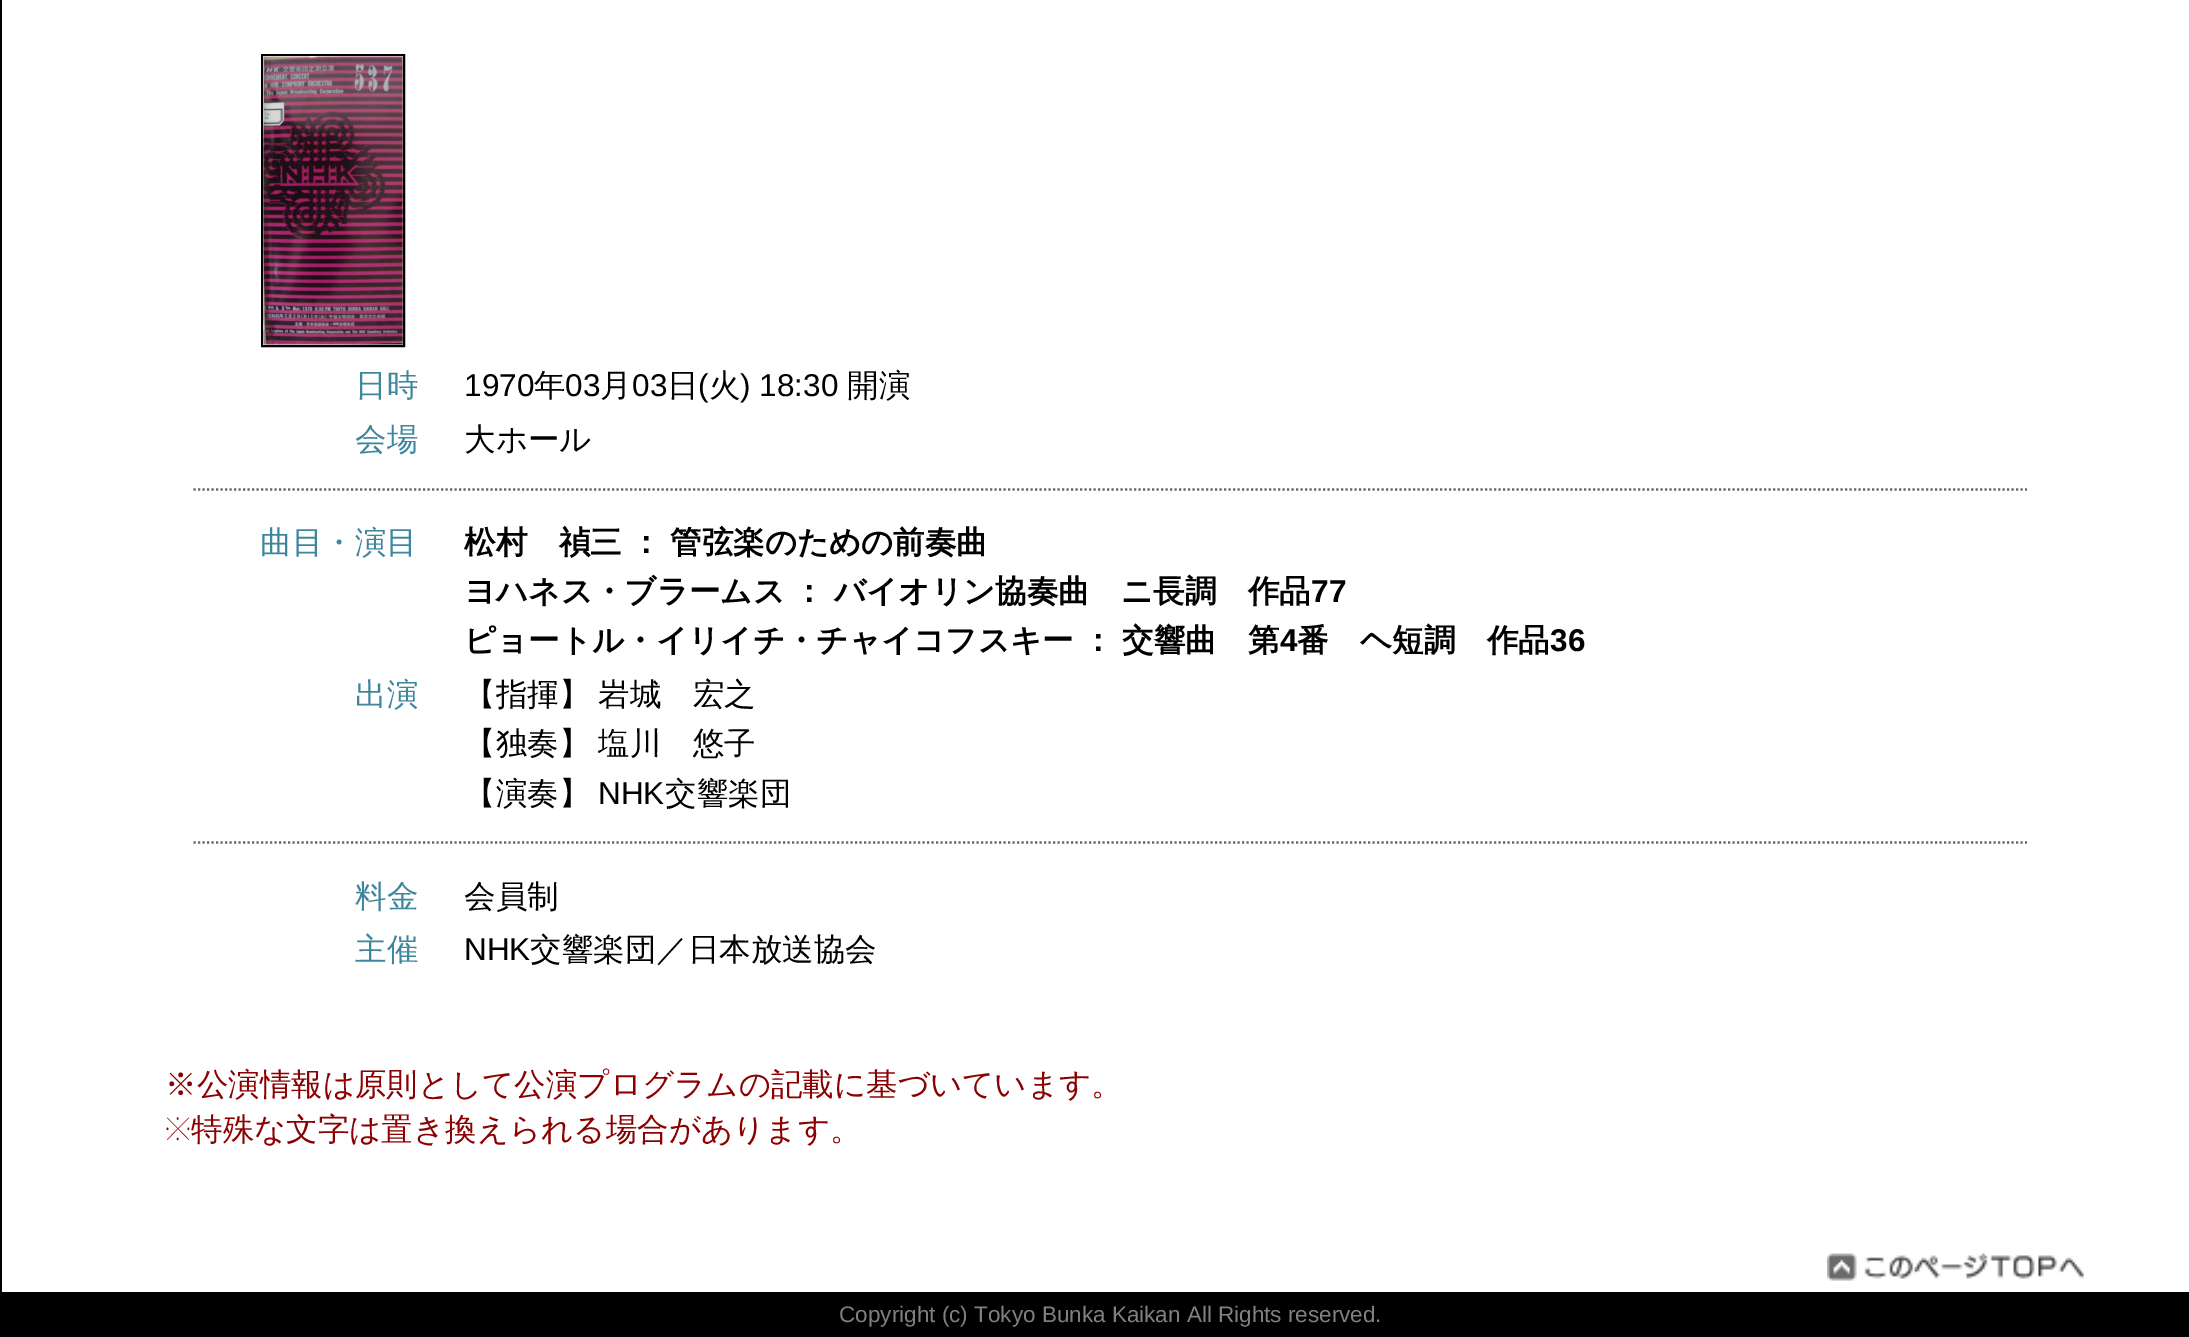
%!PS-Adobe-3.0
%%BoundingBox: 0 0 2189 1337
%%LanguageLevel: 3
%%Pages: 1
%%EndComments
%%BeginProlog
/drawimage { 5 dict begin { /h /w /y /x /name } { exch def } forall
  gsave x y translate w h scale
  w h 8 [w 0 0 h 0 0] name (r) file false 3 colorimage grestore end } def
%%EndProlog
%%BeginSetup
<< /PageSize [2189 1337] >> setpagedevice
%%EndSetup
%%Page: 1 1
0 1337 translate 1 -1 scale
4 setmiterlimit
1 setgray
0 0 2189 1337 rectfill
0 setgray
0 0 2 1337 rectfill
2 setlinewidth
262 55 142 291 rectstroke
(images/1.raw) 263 56 140 289 drawimage
0.4 setgray
2.2 setlinewidth
[2.25 2.25] 0 setdash
newpath 193.5 489.5 moveto 2027 489.5 lineto stroke
newpath 193.5 842.5 moveto 2027 842.5 lineto stroke
(images/2.raw) 1827 1253 257 28 drawimage
0 setgray
2 1292 2187 45 rectfill
/WenQuanYiZenHei-Medium [31.5 0 0 -31.5 0 0] selectfont
0.243 0.525 0.616 setrgbcolor
355 396 moveto (日時) show
/LiberationSans-Regular [31.5 0 0 -31.5 0 0] selectfont
0 setgray
464 396 moveto (1970) show
/WenQuanYiZenHei-Medium [31.5 0 0 -31.5 0 0] selectfont
534 396 moveto (年) show
/LiberationSans-Regular [31.5 0 0 -31.5 0 0] selectfont
565 396 moveto (03) show
/WenQuanYiZenHei-Medium [31.5 0 0 -31.5 0 0] selectfont
600 396 moveto (月) show
/LiberationSans-Regular [31.5 0 0 -31.5 0 0] selectfont
632 396 moveto (03) show
/WenQuanYiZenHei-Medium [31.5 0 0 -31.5 0 0] selectfont
667 396 moveto (日) show
/LiberationSans-Regular [31.5 0 0 -31.5 0 0] selectfont
698 396 moveto (\() show
/WenQuanYiZenHei-Medium [31.5 0 0 -31.5 0 0] selectfont
709 396 moveto (火) show
/LiberationSans-Regular [31.5 0 0 -31.5 0 0] selectfont
740 396 moveto (\) 18:30) show
/WenQuanYiZenHei-Medium [31.5 0 0 -31.5 0 0] selectfont
847 396 moveto (開演) show
0.243 0.525 0.616 setrgbcolor
355 450 moveto (会場) show
0 setgray
464 450 moveto (大ホール) show
0.243 0.525 0.616 setrgbcolor
260 553 moveto (曲目・演目) show
/WenQuanYiZenHei-Bold [31.5 0 0 -31.5 0 0] selectfont
0 setgray
464 553 moveto (松村　禎三) show
630 553 moveto (：) show
670 553 moveto (管弦楽のための前奏曲) show
464 602 moveto (ヨハネス・ブラームス) show
793 602 moveto (：) show
834 602 moveto (バイオリン協奏曲　ニ長調　作品) show
/LiberationSans-Bold [31.5 0 0 -31.5 0 0] selectfont
1311 602 moveto (77) show
/WenQuanYiZenHei-Bold [31.5 0 0 -31.5 0 0] selectfont
464 651 moveto (ピョートル・イリイチ・チャイコフスキー) show
1082 651 moveto (：) show
1122 651 moveto (交響曲　第) show
/LiberationSans-Bold [31.5 0 0 -31.5 0 0] selectfont
1280 651 moveto (4) show
/WenQuanYiZenHei-Bold [31.5 0 0 -31.5 0 0] selectfont
1297 651 moveto (番　ヘ短調　作品) show
/LiberationSans-Bold [31.5 0 0 -31.5 0 0] selectfont
1550 651 moveto (36) show
/WenQuanYiZenHei-Medium [31.5 0 0 -31.5 0 0] selectfont
0.243 0.525 0.616 setrgbcolor
355 705 moveto (出演) show
0 setgray
464 705 moveto (【指揮】) show
598 705 moveto (岩城　宏之) show
464 754 moveto (【独奏】) show
598 754 moveto (塩川　悠子) show
464 804 moveto (【演奏】) show
/LiberationSans-Regular [31.5 0 0 -31.5 0 0] selectfont
598 804 moveto (NHK) show
/WenQuanYiZenHei-Medium [31.5 0 0 -31.5 0 0] selectfont
665 804 moveto (交響楽団) show
0.243 0.525 0.616 setrgbcolor
355 907 moveto (料金) show
0 setgray
464 907 moveto (会員制) show
0.243 0.525 0.616 setrgbcolor
355 960 moveto (主催) show
/LiberationSans-Regular [31.5 0 0 -31.5 0 0] selectfont
0 setgray
464 960 moveto (NHK) show
/WenQuanYiZenHei-Medium [31.5 0 0 -31.5 0 0] selectfont
530 960 moveto (交響楽団／日本放送協会) show
0.545 0 0 setrgbcolor
165 1095 moveto (※公演情報は原則として公演プログラムの記載に基づいています。) show
/NotoSans-Thin [31.5 0 0 -31.5 0 0] selectfont
165 1140 moveto (※) show
/WenQuanYiZenHei-Medium [31.5 0 0 -31.5 0 0] selectfont
191 1140 moveto (特殊な文字は置き換えられる場合があります。) show
/LiberationSans-Regular [22.5 0 0 -22.5 0 0] selectfont
0.502 setgray
839 1322 moveto (Copyright \(c\) Tokyo Bunka Kaikan All Rights reserved.) show
showpage
%%EOF
